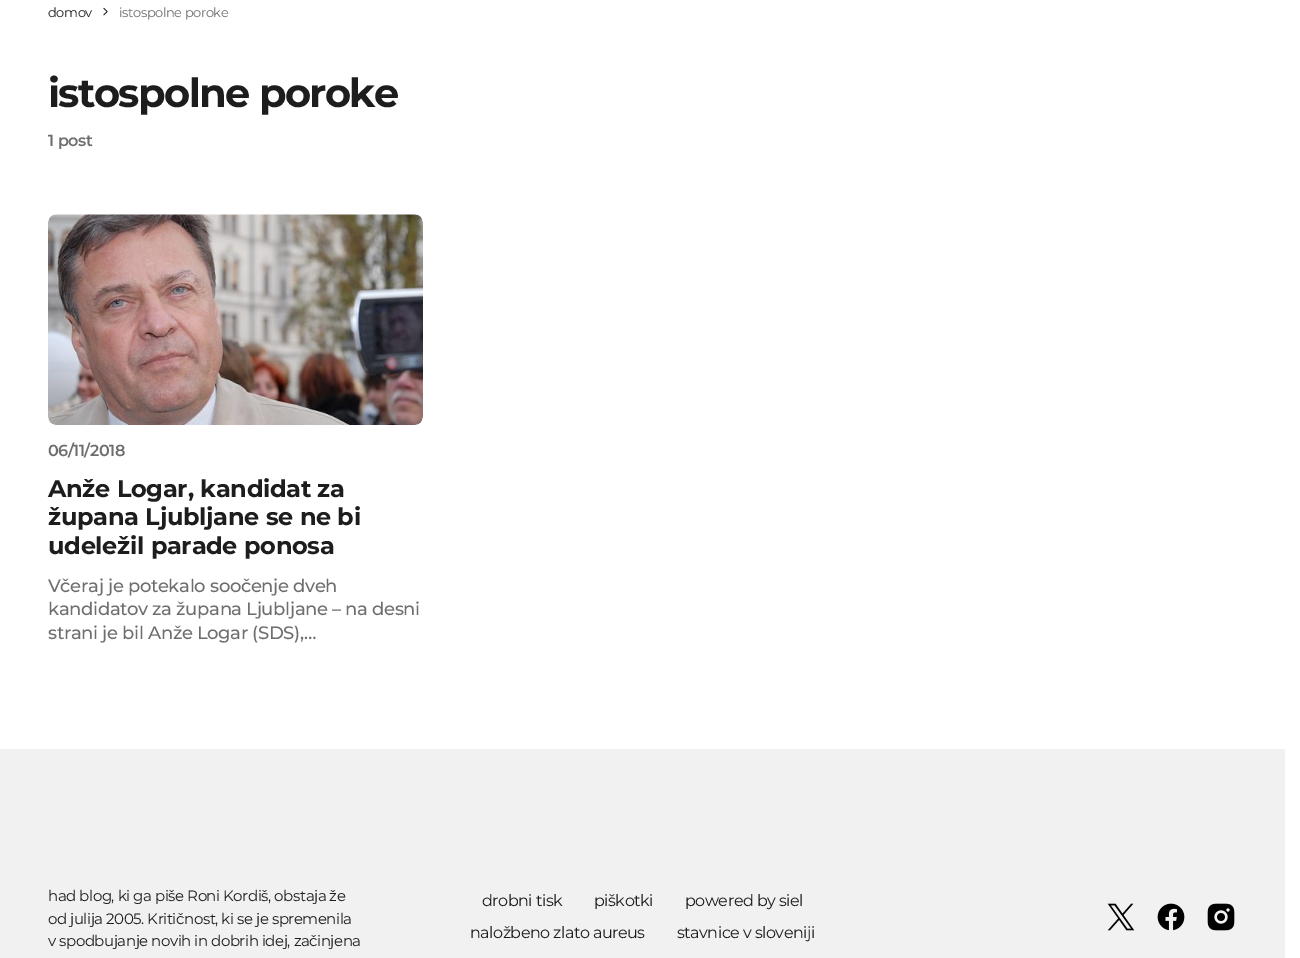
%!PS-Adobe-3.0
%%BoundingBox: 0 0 1300 958
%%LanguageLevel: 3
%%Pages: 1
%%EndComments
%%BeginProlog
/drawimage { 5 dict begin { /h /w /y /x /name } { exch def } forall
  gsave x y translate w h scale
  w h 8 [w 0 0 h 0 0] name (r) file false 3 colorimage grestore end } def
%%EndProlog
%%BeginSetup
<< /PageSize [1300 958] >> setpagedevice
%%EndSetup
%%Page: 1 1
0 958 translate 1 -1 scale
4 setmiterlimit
1 setgray
0 0 1300 958 rectfill
(images/1.raw) 103 7 5 9 drawimage
(images/2.raw) 48 214 375 211 drawimage
0.945 setgray
0 749 1285 209 rectfill
(images/3.raw) 1107 903 28 28 drawimage
(images/4.raw) 1157 903 28 28 drawimage
(images/5.raw) 1207 903 28 28 drawimage
/Montserrat-Regular [13 0 0 -13 0 0] selectfont
0.114 setgray
48 17 moveto -0.4 0 (domov) ashow
0.431 setgray
119 17 moveto -0.4 0 (istospolne poroke) ashow
/Montserrat-Bold [40 0 0 -40 0 0] selectfont
0.114 setgray
48 107 moveto -1.6 0 (istospolne poroke) ashow
/Montserrat-SemiBold [16 0 0 -16 0 0] selectfont
0.431 setgray
48 146 moveto -0.5 0 (1 post) ashow
48 456 moveto -0.5 0 (06/11/2018) ashow
/Montserrat-Bold [24 0 0 -24 0 0] selectfont
0.114 setgray
48 497 moveto -0.25 0 (Anže Logar, kandidat za) ashow
48 525 moveto -0.25 0 (župana Ljubljane se ne bi) ashow
48 554 moveto -0.25 0 (udeležil parade ponosa) ashow
/Montserrat-Medium [18 0 0 -18 0 0] selectfont
0.431 setgray
48 592 moveto -0.35 0 (Včeraj je potekalo soočenje dveh) ashow
48 615 moveto -0.35 0 (kandidatov za župana Ljubljane – na desni) ashow
48 639 moveto -0.35 0 (strani je bil Anže Logar \(SDS\),…) ashow
/Montserrat-Regular [15 0 0 -15 0 0] selectfont
0.114 setgray
48 901 moveto -0.45 0 (had blog, ki ga piše Roni Kordiš, obstaja že) ashow
48 924 moveto -0.45 0 (od julija 2005. Kritičnost, ki se je spremenila) ashow
48 946 moveto -0.45 0 (v spodbujanje novih in dobrih idej, začinjena) ashow
/Montserrat-Regular [16 0 0 -16 0 0] selectfont
482 906 moveto -0.5 0 (drobni tisk) ashow
594 906 moveto -0.5 0 (piškotki) ashow
685 906 moveto -0.5 0 (powered by siel) ashow
470 938 moveto -0.5 0 (naložbeno zlato aureus) ashow
677 938 moveto -0.5 0 (stavnice v sloveniji) ashow
showpage
%%EOF
